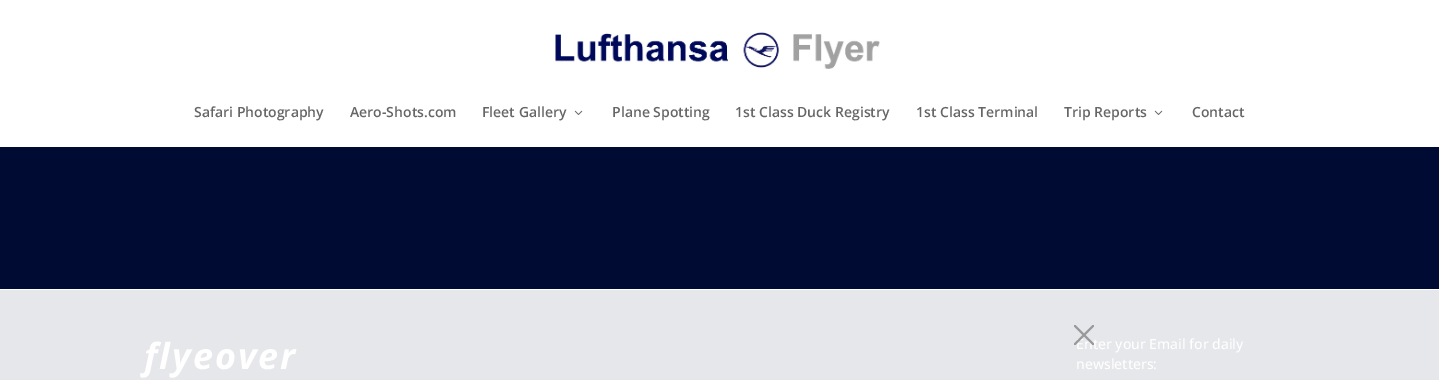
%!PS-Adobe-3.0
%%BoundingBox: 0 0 1439 381
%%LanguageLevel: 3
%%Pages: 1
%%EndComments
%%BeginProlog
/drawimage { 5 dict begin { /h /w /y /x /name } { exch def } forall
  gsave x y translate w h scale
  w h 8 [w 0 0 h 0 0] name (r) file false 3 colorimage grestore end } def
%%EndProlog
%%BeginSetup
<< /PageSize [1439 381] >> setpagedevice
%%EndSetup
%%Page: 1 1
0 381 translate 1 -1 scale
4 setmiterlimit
0 0.043 0.2 setrgbcolor
0 0 1439 381 rectfill
0.902 0.906 0.922 setrgbcolor
0 290 1439 90 rectfill
0 0.039 0.18 setrgbcolor
0 147 1439 1 rectfill
1 setgray
0 0 1439 147 rectfill
(images/1.raw) 555 32 325 37 drawimage
(images/2.raw) 574 110 9 5 drawimage
(images/2.raw) 1154 110 9 5 drawimage
0 289 1439 1 rectfill
0 380 1439 1 rectfill
/OpenSans-SemiBold [14 0 0 -14 0 0] selectfont
0.4 setgray
194 117 moveto (Safari Photography) show
350 117 moveto (Aero-Shots.com) show
482 117 moveto (Fleet Gallery) show
612 117 moveto (Plane Spotting) show
735 117 moveto (1st Class Duck Registry) show
916 117 moveto (1st Class Terminal) show
1064 117 moveto (Trip Reports) show
1192 117 moveto (Contact) show
/OpenSans-BoldItalic [36 0 0 -36 0 0] selectfont
1 setgray
144 369 moveto 2 0 (flyeover) ashow
/OpenSans-Medium [14 0 0 -14 0 0] selectfont
1076 349 moveto (Enter your Email for daily) show
1076 369 moveto (newsletters:) show
gsave
1074 325 20 20 rectclip
0.6 setgray
2 setlinewidth
newpath 1074 345 moveto 1094 325 lineto 1074 325 moveto 1094 345 lineto stroke
grestore
showpage
%%EOF
